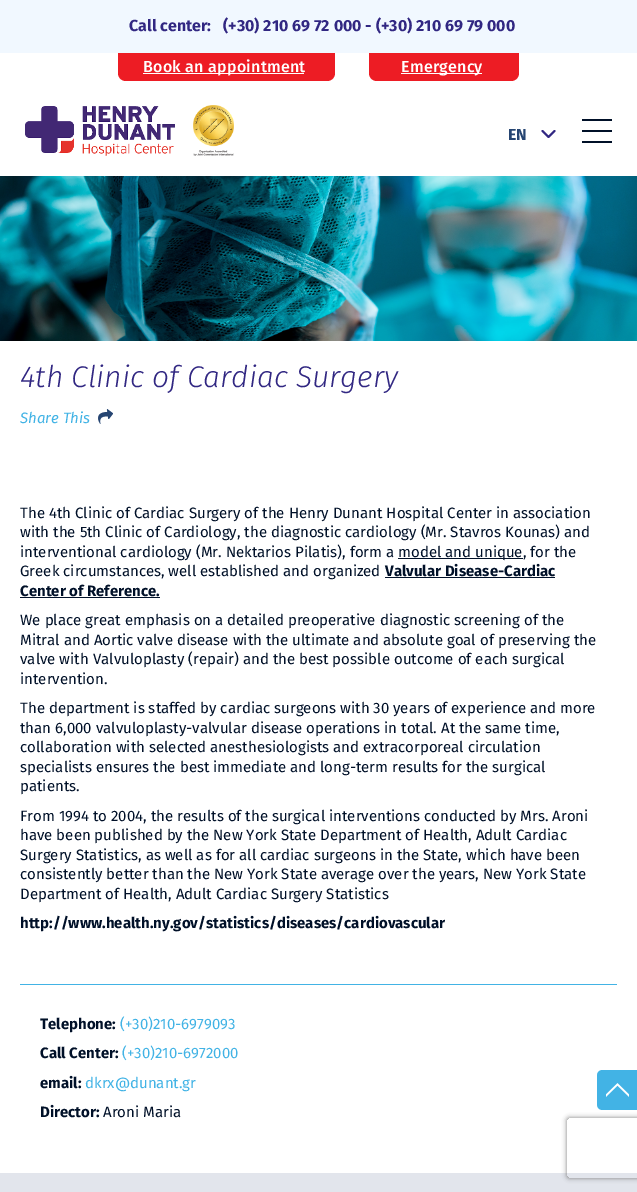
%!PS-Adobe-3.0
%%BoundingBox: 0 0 637 1192
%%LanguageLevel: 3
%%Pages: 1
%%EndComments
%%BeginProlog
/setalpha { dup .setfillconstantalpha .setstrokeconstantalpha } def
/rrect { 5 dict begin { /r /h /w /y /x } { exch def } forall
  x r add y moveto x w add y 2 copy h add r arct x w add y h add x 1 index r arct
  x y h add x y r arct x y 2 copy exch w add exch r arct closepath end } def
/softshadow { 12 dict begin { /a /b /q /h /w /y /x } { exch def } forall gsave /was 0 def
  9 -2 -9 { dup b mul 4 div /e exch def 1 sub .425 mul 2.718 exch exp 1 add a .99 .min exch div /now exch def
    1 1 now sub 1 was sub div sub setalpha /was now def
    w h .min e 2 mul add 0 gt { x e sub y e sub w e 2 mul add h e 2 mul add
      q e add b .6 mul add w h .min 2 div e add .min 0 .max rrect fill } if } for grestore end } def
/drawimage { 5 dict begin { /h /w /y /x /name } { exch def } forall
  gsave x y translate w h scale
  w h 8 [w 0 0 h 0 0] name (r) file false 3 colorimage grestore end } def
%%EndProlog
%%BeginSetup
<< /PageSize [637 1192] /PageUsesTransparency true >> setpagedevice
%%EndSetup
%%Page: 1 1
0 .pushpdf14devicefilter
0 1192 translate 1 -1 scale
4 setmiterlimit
1 setgray
0 0 637 1192 rectfill
0.945 0.973 1 setrgbcolor
0 0 637 53 rectfill
0.929 0.11 0.141 setrgbcolor
newpath 118 53 moveto 335 53 lineto 335 73 lineto 335 77.5 331.5 81 327 81 curveto 126 81 lineto 121.5 81 118 77.5 118 73 curveto closepath fill
1 setgray
143 73 161 1 rectfill
0.929 0.11 0.141 setrgbcolor
newpath 369 53 moveto 519 53 lineto 519 73 lineto 519 77.5 515.5 81 511 81 curveto 377 81 lineto 372.5 81 369 77.5 369 73 curveto closepath fill
1 setgray
401 73 81 1 rectfill
(images/1.raw) 25 106 150 50 drawimage
(images/2.raw) 193 105 41 51 drawimage
0.192 0.153 0.51 setrgbcolor
2 setlinewidth
1 setlinecap
1 setlinejoin
newpath 542.5 131 moveto 548.5 137 lineto 554.5 131 lineto stroke
0 0.063 0.157 setrgbcolor
582 130 30 2 rectfill
582 119 30 2 rectfill
582 141 30 2 rectfill
(images/3.raw) 0 176 637 165 drawimage
(images/4.raw) 98 409 15 15 drawimage
0.259 0.702 0.898 setrgbcolor
20 984 597 1 rectfill
0 0.063 0.157 setrgbcolor
398 558 125 1 rectfill
385 577 170 1 rectfill
20 597 140 1 rectfill
0.886 0.898 0.925 setrgbcolor
0 1173 637 19 rectfill
gsave
newpath 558 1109 moveto 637 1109 lineto 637 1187 lineto 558 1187 lineto closepath 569 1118 moveto 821 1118 lineto 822 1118 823 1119 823 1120 curveto 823 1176 lineto 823 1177 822 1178 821 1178 curveto 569 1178 lineto 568 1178 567 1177 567 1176 curveto 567 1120 lineto 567 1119 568 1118 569 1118 curveto closepath eoclip newpath
0.502 setgray
567 1118 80 60 2 2.5 1 softshadow
grestore
(images/5.raw) 597 1070 40 40 drawimage
/FiraSans-Bold [16 0 0 -16 0 0] selectfont
0.192 0.153 0.51 setrgbcolor
129 31 moveto (Call center:) show
223 31 moveto (\(+30\) 210 69 72 000 - \(+30\) 210 69 79 000) show
/FiraSans-Medium [16 0 0 -16 0 0] selectfont
1 setgray
143 72 moveto 0.25 0 (Book an appointment) ashow
401 72 moveto 0.25 0 (Emergency) ashow
/FiraSans-Bold [16 0 0 -16 0 0] selectfont
0.149 0.271 0.447 setrgbcolor
508 140 moveto (EN) show
/FiraSans-LightItalic [30 0 0 -30 0 0] selectfont
0.192 0.153 0.51 setrgbcolor
20 387 moveto (4th Clinic of Cardiac Surgery) show
/FiraSans-Italic [15 0 0 -15 0 0] selectfont
0.259 0.702 0.898 setrgbcolor
20 423 moveto (Share This) show
/FiraSans-Regular [15 0 0 -15 0 0] selectfont
0 0.063 0.157 setrgbcolor
20 518 moveto (The 4th Clinic of Cardiac Surgery of the Henry Dunant Hospital Center in association) show
20 537 moveto (with the 5th Clinic of Cardiology, the diagnostic cardiology \(Mr. Stavros Kounas\) and) show
20 557 moveto (interventional cardiology \(Mr. Nektarios Pilatis\), form a) show
398 557 moveto (model and unique, for the) show
20 576 moveto (Greek circumstances, well established and organized) show
/FiraSans-Bold [15 0 0 -15 0 0] selectfont
385 576 moveto (Valvular Disease-Cardiac) show
20 596 moveto (Center of Reference.) show
/FiraSans-Regular [15 0 0 -15 0 0] selectfont
20 625 moveto (We place great emphasis on a detailed preoperative diagnostic screening of the) show
20 645 moveto (Mitral and Aortic valve disease with the ultimate and absolute goal of preserving the) show
20 664 moveto (valve with Valvuloplasty \(repair\) and the best possible outcome of each surgical) show
20 684 moveto (intervention.) show
20 713 moveto (The department is staffed by cardiac surgeons with 30 years of experience and more) show
20 733 moveto (than 6,000 valvuloplasty-valvular disease operations in total. At the same time,) show
20 752 moveto (collaboration with selected anesthesiologists and extracorporeal circulation) show
20 772 moveto (specialists ensures the best immediate and long-term results for the surgical) show
20 791 moveto (patients.) show
20 821 moveto (From 1994 to 2004, the results of the surgical interventions conducted by Mrs. Aroni) show
20 840 moveto (have been published by the New York State Department of Health, Adult Cardiac) show
20 860 moveto (Surgery Statistics, as well as for all cardiac surgeons in the State, which have been) show
20 879 moveto (consistently better than the New York State average over the years, New York State) show
20 899 moveto (Department of Health, Adult Cardiac Surgery Statistics) show
/FiraSans-Bold [15 0 0 -15 0 0] selectfont
20 928 moveto (http://www.health.ny.gov/statistics/diseases/cardiovascular) show
40 1029 moveto (Telephone:) show
/FiraSans-Regular [15 0 0 -15 0 0] selectfont
0.259 0.702 0.898 setrgbcolor
120 1029 moveto (\(+30\)210-6979093) show
/FiraSans-Bold [15 0 0 -15 0 0] selectfont
0 0.063 0.157 setrgbcolor
40 1058 moveto (Call Center:) show
/FiraSans-Regular [15 0 0 -15 0 0] selectfont
0.259 0.702 0.898 setrgbcolor
122 1058 moveto (\(+30\)210-6972000) show
/FiraSans-Bold [15 0 0 -15 0 0] selectfont
0 0.063 0.157 setrgbcolor
40 1088 moveto (email:) show
/FiraSans-Regular [15 0 0 -15 0 0] selectfont
0.259 0.702 0.898 setrgbcolor
85 1088 moveto (dkrx@dunant.gr) show
/FiraSans-Bold [15 0 0 -15 0 0] selectfont
0 0.063 0.157 setrgbcolor
40 1117 moveto (Director:) show
/FiraSans-Regular [15 0 0 -15 0 0] selectfont
103 1117 moveto (Aroni Maria) show
.poppdf14devicefilter showpage
%%EOF
